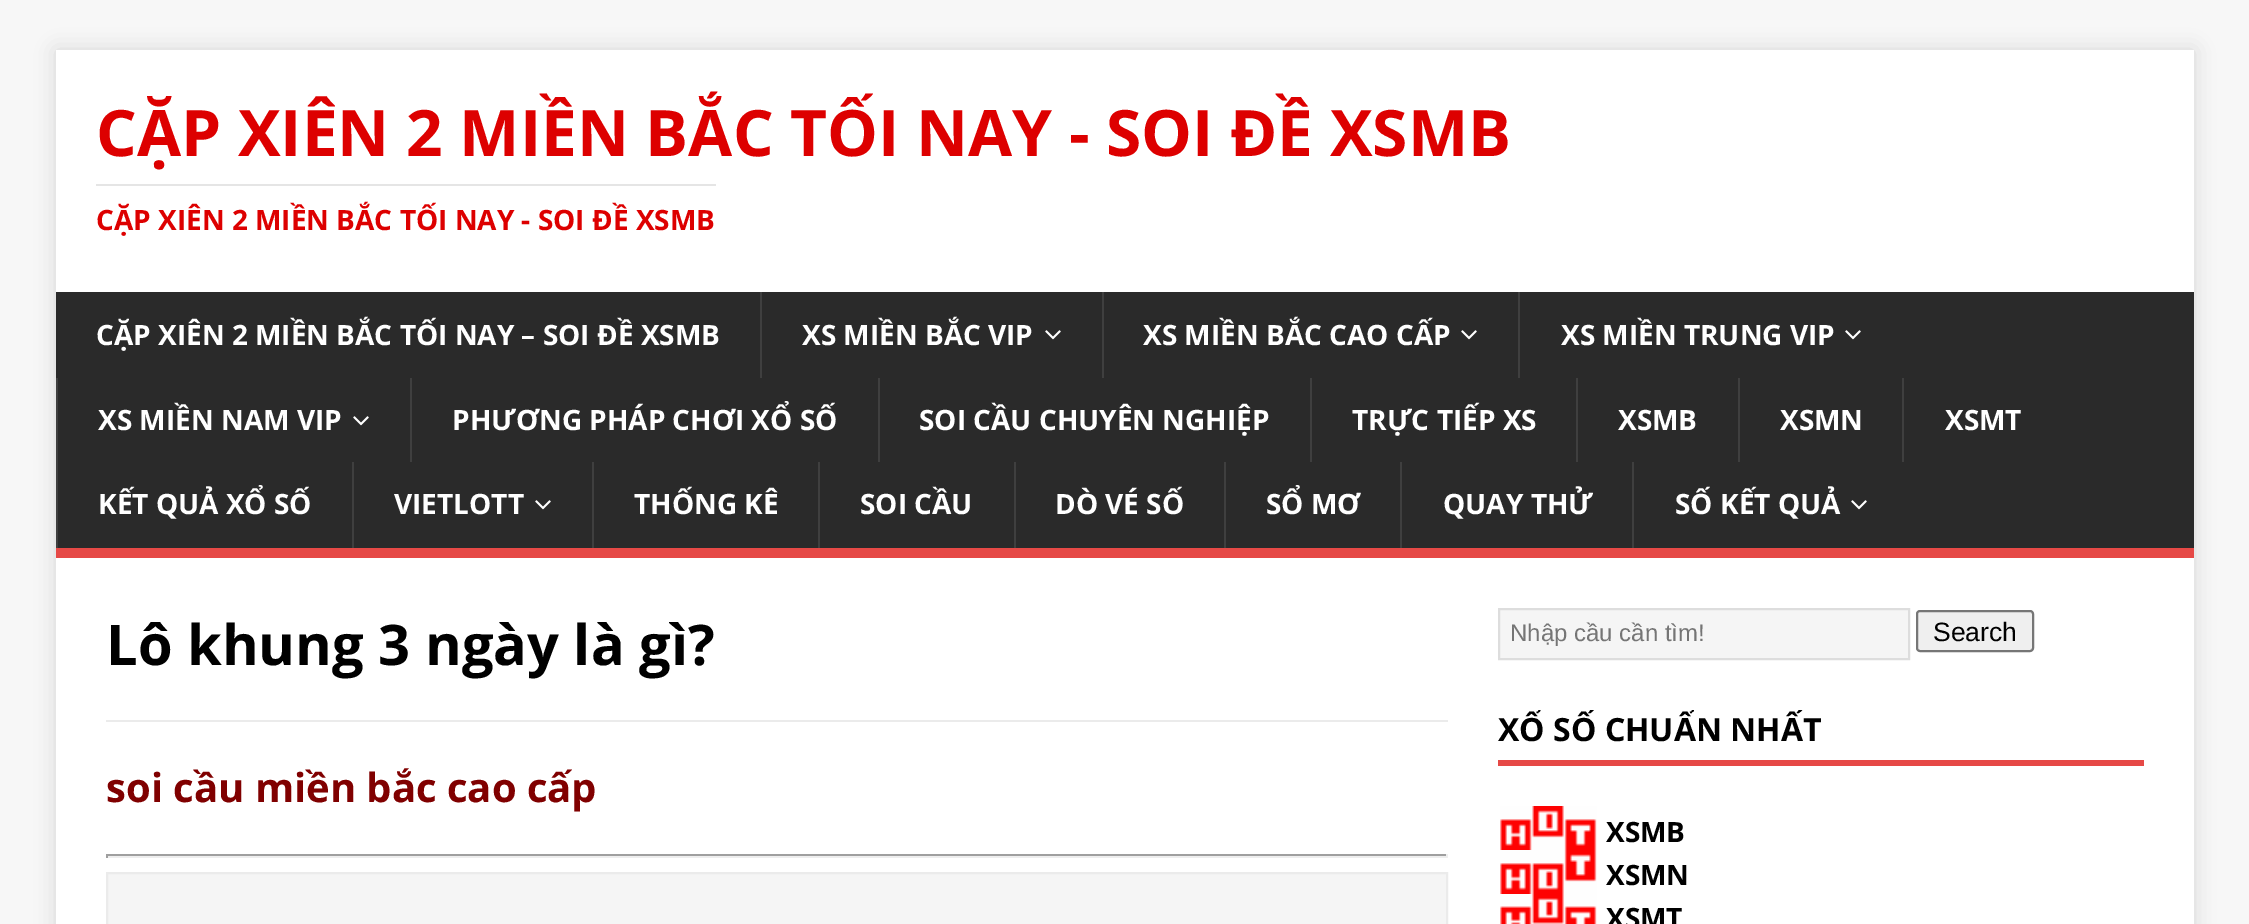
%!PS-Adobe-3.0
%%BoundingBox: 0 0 2249 924
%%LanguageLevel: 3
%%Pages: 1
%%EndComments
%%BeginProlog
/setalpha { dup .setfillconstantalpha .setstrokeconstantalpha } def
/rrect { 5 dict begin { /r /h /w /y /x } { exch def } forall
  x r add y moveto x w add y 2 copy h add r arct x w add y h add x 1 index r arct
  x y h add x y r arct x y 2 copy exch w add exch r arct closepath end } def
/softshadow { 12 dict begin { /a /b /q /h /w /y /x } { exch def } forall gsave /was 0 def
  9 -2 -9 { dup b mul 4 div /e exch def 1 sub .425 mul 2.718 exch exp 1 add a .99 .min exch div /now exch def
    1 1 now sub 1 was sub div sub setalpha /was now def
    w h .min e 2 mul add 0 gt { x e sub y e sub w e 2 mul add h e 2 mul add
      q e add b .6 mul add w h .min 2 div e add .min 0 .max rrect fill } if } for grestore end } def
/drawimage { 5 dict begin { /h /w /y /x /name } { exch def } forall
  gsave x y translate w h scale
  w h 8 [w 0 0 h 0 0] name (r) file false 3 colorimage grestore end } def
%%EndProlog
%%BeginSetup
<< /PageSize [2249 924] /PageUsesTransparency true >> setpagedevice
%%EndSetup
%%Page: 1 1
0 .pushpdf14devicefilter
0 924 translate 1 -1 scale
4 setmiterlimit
0.969 setgray
0 0 2249 924 rectfill
0.196 setgray
56 50 2138 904 0 10 0.17 softshadow
1 setgray
56 50 2138 242 rectfill
0.898 setgray
96 184 620 2 rectfill
0.165 setgray
56 292 2138 256 rectfill
0.902 0.286 0.275 setrgbcolor
56 548 2138 10 rectfill
0.247 setgray
760 292 2 86 rectfill
(images/1.raw) 1045 330 16 10 drawimage
1102 292 2 86 rectfill
(images/1.raw) 1461 330 16 10 drawimage
1518 292 2 86 rectfill
(images/1.raw) 1845 330 16 10 drawimage
56 378 2 170 rectfill
(images/1.raw) 353 416 16 10 drawimage
410 378 2 84 rectfill
878 378 2 84 rectfill
1310 378 2 84 rectfill
1576 378 2 84 rectfill
1738 378 2 84 rectfill
1902 378 2 84 rectfill
352 462 2 86 rectfill
(images/1.raw) 535 500 16 10 drawimage
592 462 2 86 rectfill
818 462 2 86 rectfill
1014 462 2 86 rectfill
1224 462 2 86 rectfill
1400 462 2 86 rectfill
1632 462 2 86 rectfill
(images/1.raw) 1851 500 16 10 drawimage
1 setgray
56 558 2138 366 rectfill
0.922 setgray
106 720 1342 2 rectfill
0.624 setgray
106 854 1342 2 rectfill
0.933 setgray
1446 854 2 4 rectfill
106 856 1342 2 rectfill
0.624 setgray
106 854 2 4 rectfill
0.961 setgray
newpath 107 873 moveto 1447 873 lineto 1447 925 lineto 107 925 lineto closepath gsave fill grestore
0.922 setgray
2 setlinewidth
stroke
0.961 setgray
newpath 1499 609 moveto 1909 609 lineto 1909 659 lineto 1499 659 lineto closepath gsave fill grestore
0.867 setgray
stroke
0.937 setgray
1917 611 116 40 3 rrect gsave fill grestore
0.463 setgray
stroke
0.902 0.286 0.275 setrgbcolor
1498 760 646 6 rectfill
(images/2.raw) 1500 806 97 44 drawimage
(images/3.raw) 1500 850 97 44 drawimage
(images/4.raw) 1500 894 97 30 drawimage
/OpenSans-Bold [64 0 0 -64 0 0] selectfont
0.867 0 0 setrgbcolor
96 156 moveto (CẶP XIÊN 2 MIỀN BẮC TỐI NAY - SOI ĐỀ XSMB) show
/OpenSans-Bold [28 0 0 -28 0 0] selectfont
96 230 moveto (CẶP XIÊN 2 MIỀN BẮC TỐI NAY - SOI ĐỀ XSMB) show
1 setgray
96 345 moveto (CẶP XIÊN 2 MIỀN BẮC TỐI NAY – SOI ĐỀ XSMB) show
802 345 moveto (XS MIỀN BẮC VIP) show
1143 345 moveto (XS MIỀN BẮC CAO CẤP) show
1561 345 moveto (XS MIỀN TRUNG VIP) show
98 430 moveto (XS MIỀN NAM VIP) show
452 430 moveto (PHƯƠNG PHÁP CHƠI XỔ SỐ) show
919 430 moveto (SOI CẦU CHUYÊN NGHIỆP) show
1352 430 moveto (TRỰC TIẾP XS) show
1618 430 moveto (XSMB) show
1780 430 moveto (XSMN) show
1945 430 moveto (XSMT) show
98 514 moveto (KẾT QUẢ XỔ SỐ) show
394 514 moveto (VIETLOTT) show
634 514 moveto (THỐNG KÊ) show
860 514 moveto (SOI CẦU) show
1055 514 moveto (DÒ VÉ SỐ) show
1266 514 moveto (SỔ MƠ) show
1443 514 moveto (QUAY THỬ) show
1675 514 moveto (SỐ KẾT QUẢ) show
/OpenSans-Bold [56 0 0 -56 0 0] selectfont
0 setgray
106 665 moveto (Lô khung 3 ngày là gì?) show
/OpenSans-Bold [40 0 0 -40 0 0] selectfont
0.502 0 0 setrgbcolor
106 802 moveto (soi cầu miền bắc cao cấp) show
/LiberationSans-Regular [24 0 0 -24 0 0] selectfont
0.459 setgray
1510 641 moveto (Nhập cầu cần tìm!) show
/LiberationSans-Regular [26.5 0 0 -26.5 0 0] selectfont
0 setgray
1933 641 moveto (Search) show
gsave
1498 710 646 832 rectclip
/OpenSans-Bold [32 0 0 -32 0 0] selectfont
1498 741 moveto (XỔ SỐ CHUẨN NHẤT) show
grestore
/OpenSans-Bold [28 0 0 -28 0 0] selectfont
1606 842 moveto (XSMB) show
1606 885 moveto (XSMN) show
1606 928 moveto (XSMT) show
.poppdf14devicefilter showpage
%%EOF
